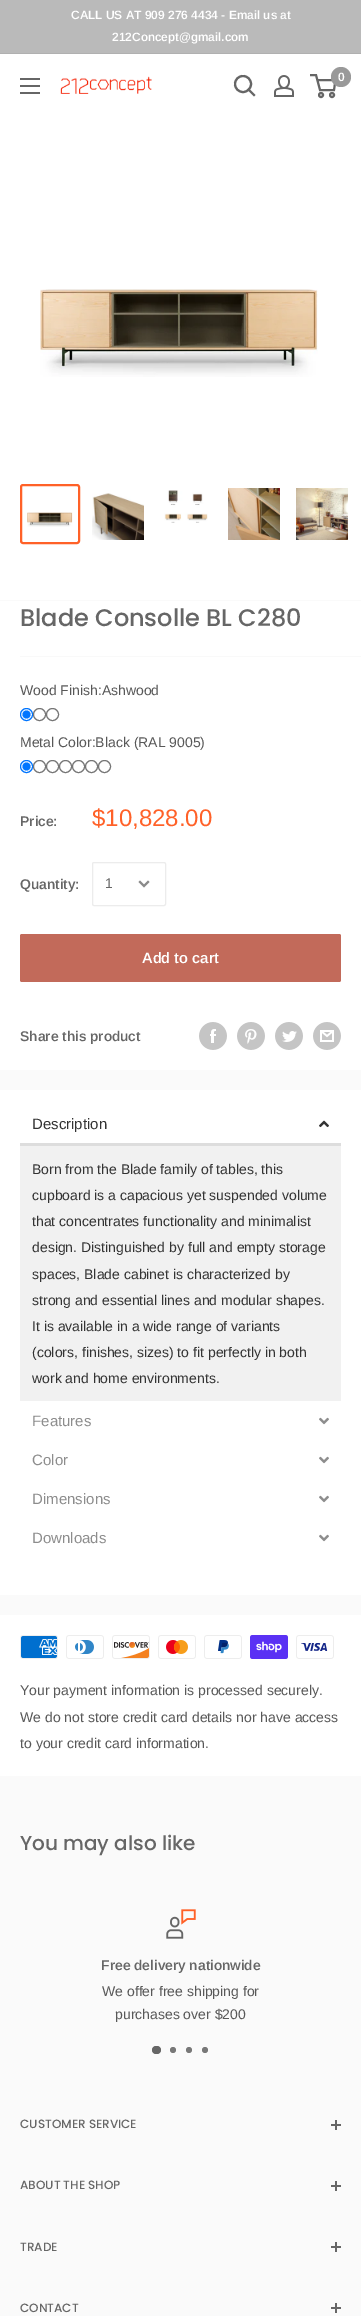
%!PS-Adobe-3.0
%%BoundingBox: 0 0 361 2316
%%LanguageLevel: 3
%%Pages: 1
%%EndComments
%%BeginProlog
/rrect { 5 dict begin { /r /h /w /y /x } { exch def } forall
  x r add y moveto x w add y 2 copy h add r arct x w add y h add x 1 index r arct
  x y h add x y r arct x y 2 copy exch w add exch r arct closepath end } def
/drawimage { 5 dict begin { /h /w /y /x /name } { exch def } forall
  gsave x y translate w h scale
  w h 8 [w 0 0 h 0 0] name (r) file false 3 colorimage grestore end } def
%%EndProlog
%%BeginSetup
<< /PageSize [361 2316] >> setpagedevice
%%EndSetup
%%Page: 1 1
0 2316 translate 1 -1 scale
4 setmiterlimit
0.98 setgray
0 0 361 2316 rectfill
0.729 setgray
0 0 361 53 rectfill
0.69 setgray
0 53 361 1 rectfill
1 setgray
0 54 361 546 rectfill
(images/1.raw) 20 78 20 16 drawimage
(images/2.raw) 60 76 92 18 drawimage
0.4 setgray
2.1 setlinewidth
2 setlinecap
newpath 254 95 moveto 248.5 89.5 lineto stroke
0 setlinecap
newpath 243 84 8 0 360 arc closepath stroke
(images/3.raw) 274 75 20 22 drawimage
2 setlinewidth
newpath 321 95 2 0 360 arc closepath stroke
newpath 332 95 2 0 360 arc closepath stroke
newpath 317.5 80 moveto 335.5 80 lineto 334 90 lineto 320 90 lineto 316 75 lineto 310 75 lineto stroke
0.6 setgray
newpath 341 77 10 0 360 arc closepath fill
(images/4.raw) 40 289 278 88 drawimage
1 0.38 0.157 setrgbcolor
21 485 58 58 2 rrect stroke
(images/5.raw) 27 512 46 15 drawimage
(images/6.raw) 92 493 52 47 drawimage
(images/7.raw) 164 490 44 33 drawimage
(images/8.raw) 228 488 52 52 drawimage
(images/9.raw) 296 488 52 52 drawimage
1 setgray
0 601 361 469 rectfill
0.976 setgray
20 656 341 1 rectfill
0 0.459 1 setrgbcolor
1 setlinewidth
newpath 26.5 714.5 6 0 360 arc closepath stroke
newpath 26.5 714.5 4 0 360 arc closepath fill
0.463 setgray
newpath 39.5 714.5 6 0 360 arc closepath stroke
newpath 52.5 714.5 6 0 360 arc closepath stroke
0 0.459 1 setrgbcolor
newpath 26.5 766.5 6 0 360 arc closepath stroke
newpath 26.5 766.5 4 0 360 arc closepath fill
0.463 setgray
newpath 39.5 766.5 6 0 360 arc closepath stroke
newpath 52.5 766.5 6 0 360 arc closepath stroke
newpath 65.5 766.5 6 0 360 arc closepath stroke
newpath 78.5 766.5 6 0 360 arc closepath stroke
newpath 91.5 766.5 6 0 360 arc closepath stroke
newpath 104.5 766.5 6 0 360 arc closepath stroke
0.925 setgray
92.5 862.5 73 43 1.5 rrect stroke
0.541 setgray
2 setlinewidth
2 setlinecap
newpath 148 882 moveto 144 886 lineto 140 882 lineto stroke
0.761 0.416 0.353 setrgbcolor
20 934 321 48 2 rrect fill
(images/10.raw) 199 1022 28 28 drawimage
(images/11.raw) 237 1022 28 28 drawimage
(images/12.raw) 275 1022 28 28 drawimage
(images/13.raw) 313 1022 28 28 drawimage
1 setgray
0 1090 361 505 rectfill
0.867 setgray
20 1143 321 3 rectfill
(images/14.raw) 319 1120 10 8 drawimage
0.945 setgray
20 1146 321 255 rectfill
(images/15.raw) 319 1417 10 8 drawimage
(images/15.raw) 319 1456 10 8 drawimage
(images/15.raw) 319 1495 10 8 drawimage
(images/15.raw) 319 1534 10 8 drawimage
1 setgray
0 1615 361 161 rectfill
(images/16.raw) 20 1635 38 24 drawimage
(images/17.raw) 66 1635 38 24 drawimage
(images/18.raw) 112 1635 38 24 drawimage
(images/19.raw) 158 1635 38 24 drawimage
(images/20.raw) 204 1635 38 24 drawimage
(images/21.raw) 250 1635 38 24 drawimage
(images/22.raw) 296 1635 38 24 drawimage
(images/23.raw) 166 1909 30 30 drawimage
0.4 setgray
152 2046 9 8 4 rrect fill
0.471 setgray
newpath 173 2050 3 0 360 arc closepath fill
newpath 189 2050 3 0 360 arc closepath fill
newpath 205 2050 3 0 360 arc closepath fill
0.4 setgray
335 2120 2 10 rectfill
331 2124 10 2 rectfill
335 2181 2 10 rectfill
331 2185 10 2 rectfill
335 2242 2 10 rectfill
331 2246 10 2 rectfill
335 2303 2 10 rectfill
331 2307 10 2 rectfill
/Arimo-SemiBold [12 0 0 -12 0 0] selectfont
1 setgray
71 19 moveto (CALL US AT 909 276 4434 - Email us at) show
112 41 moveto (212Concept@gmail.com) show
338 81 moveto (0) show
/Poppins-Medium [24 0 0 -24 0 0] selectfont
0.4 setgray
20 626 moveto (Blade Consolle BL C280) show
/Arimo-Regular [14 0 0 -14 0 0] selectfont
0.345 setgray
20 695 moveto (Wood Finish:Ashwood) show
20 747 moveto (Metal Color:Black \(RAL 9005\)) show
/Arimo-SemiBold [14 0 0 -14 0 0] selectfont
0.4 setgray
20 826 moveto (Price:) show
/Arimo-Regular [24 0 0 -24 0 0] selectfont
1 0.38 0.157 setrgbcolor
92 826 moveto ($10,828.00) show
/Arimo-SemiBold [14 0 0 -14 0 0] selectfont
0.4 setgray
20 889 moveto (Quantity:) show
/Arimo-Regular [14 0 0 -14 0 0] selectfont
105 888 moveto (1) show
/Arimo-SemiBold [15 0 0 -15 0 0] selectfont
1 setgray
142 963 moveto (Add to cart) show
/Arimo-SemiBold [14 0 0 -14 0 0] selectfont
0.4 setgray
20 1041 moveto (Share this product) show
/Arimo-Regular [15 0 0 -15 0 0] selectfont
0.2 setgray
32 1129 moveto (Description) show
/Arimo-Regular [14 0 0 -14 0 0] selectfont
32 1174 moveto (Born from the Blade family of tables, this) show
32 1200 moveto (cupboard is a capacious yet suspended volume) show
32 1226 moveto (that concentrates functionality and minimalist) show
32 1252 moveto (design. Distinguished by full and empty storage) show
32 1279 moveto (spaces, Blade cabinet is characterized by) show
32 1305 moveto (strong and essential lines and modular shapes.) show
32 1331 moveto (It is available in a wide range of variants) show
32 1357 moveto (\(colors, finishes, sizes\) to fit perfectly in both) show
32 1383 moveto (work and home environments.) show
/Arimo-Regular [15 0 0 -15 0 0] selectfont
0.553 setgray
32 1426 moveto (Features) show
32 1465 moveto (Color) show
32 1504 moveto (Dimensions) show
32 1543 moveto (Downloads) show
/Arimo-Regular [14 0 0 -14 0 0] selectfont
0.345 setgray
20 1695 moveto (Your payment information is processed securely.) show
20 1722 moveto (We do not store credit card details nor have access) show
20 1748 moveto (to your credit card information.) show
/Poppins-Medium [20 0 0 -20 0 0] selectfont
0.4 setgray
20 1850 moveto (You may also like) show
/Arimo-SemiBold [14 0 0 -14 0 0] selectfont
101 1970 moveto (Free delivery nationwide) show
/Arimo-Regular [14 0 0 -14 0 0] selectfont
0.345 setgray
102 1996 moveto (We offer free shipping for) show
115 2019 moveto (purchases over $200) show
/Poppins-Medium [12 0 0 -12 0 0] selectfont
0.4 setgray
20 2128 moveto (CUSTOMER SERVICE) show
20 2189 moveto (ABOUT THE SHOP) show
20 2251 moveto (TRADE) show
20 2312 moveto (CONTACT) show
showpage
%%EOF
